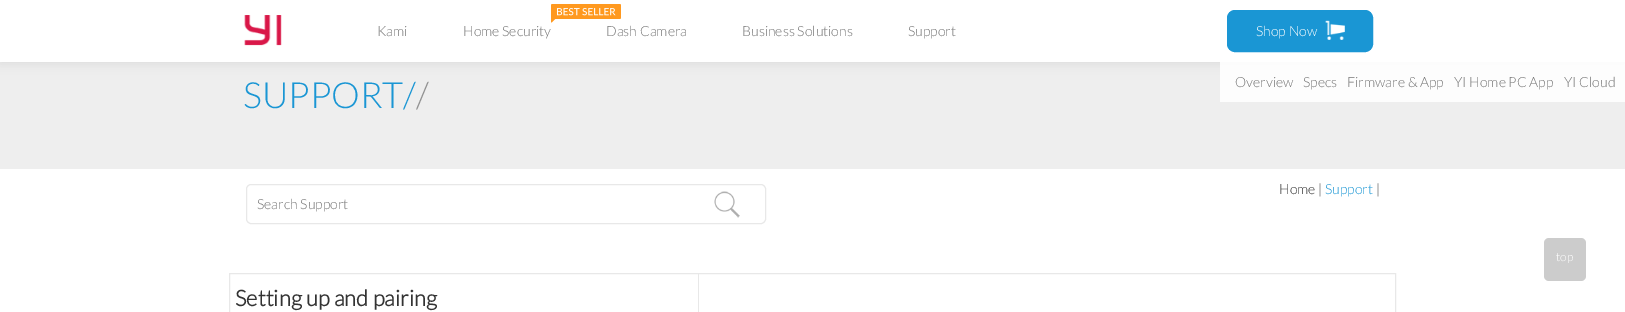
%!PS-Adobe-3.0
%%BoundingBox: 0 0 1625 312
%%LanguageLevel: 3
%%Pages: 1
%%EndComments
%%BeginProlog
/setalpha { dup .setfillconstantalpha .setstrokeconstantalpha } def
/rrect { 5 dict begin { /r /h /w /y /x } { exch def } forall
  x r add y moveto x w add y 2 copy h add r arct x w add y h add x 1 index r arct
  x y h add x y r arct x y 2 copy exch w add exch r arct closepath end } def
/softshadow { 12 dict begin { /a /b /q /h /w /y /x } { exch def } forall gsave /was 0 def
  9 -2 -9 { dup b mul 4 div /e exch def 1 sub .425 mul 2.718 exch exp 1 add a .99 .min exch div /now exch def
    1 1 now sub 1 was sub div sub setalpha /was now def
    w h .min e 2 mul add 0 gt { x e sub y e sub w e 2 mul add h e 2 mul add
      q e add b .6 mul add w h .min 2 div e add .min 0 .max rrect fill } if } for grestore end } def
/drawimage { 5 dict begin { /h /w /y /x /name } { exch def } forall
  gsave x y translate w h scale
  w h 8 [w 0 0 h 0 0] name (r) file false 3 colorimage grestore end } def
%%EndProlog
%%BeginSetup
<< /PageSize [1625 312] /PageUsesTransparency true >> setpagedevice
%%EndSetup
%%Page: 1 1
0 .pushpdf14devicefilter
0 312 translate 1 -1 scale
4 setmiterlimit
1 setgray
0 0 1625 312 rectfill
0.933 setgray
0 62 1625 107 rectfill
0.863 setgray
0 2 1625 62 0 5 1 softshadow
1 setgray
0 0 1625 62 rectfill
(images/1.raw) 244 15 38 31 drawimage
(images/2.raw) 551 4 70 19 drawimage
0.102 0.588 0.831 setrgbcolor
1227.5 10.5 145 41 7.5 rrect gsave fill grestore
stroke
(images/3.raw) 1325 20 20 20 drawimage
0.9 setalpha
1 setgray
1220 62 405 40 rectfill
1 setalpha
0.91 setgray
246.5 184.5 519 39 4.5 rrect stroke
(images/4.raw) 714 191 26 27 drawimage
229.5 273.5 1166 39 rectstroke
698 274 1 38 rectfill
0.8 setgray
1544 238 42 43 5 rrect fill
/Lato-Light [14 0 0 -14 0 0] selectfont
0.459 setgray
377 36 moveto (Kami) show
463 36 moveto (Home Security) show
606 36 moveto (Dash Camera) show
742 36 moveto (Business Solutions) show
908 36 moveto (Support) show
1 setgray
1256 36 moveto (Shop Now) show
0.459 setgray
1235 87 moveto (Overview) show
1303 87 moveto (Specs) show
1347 87 moveto (Firmware & App) show
1454 87 moveto (YI Home PC App) show
1564 87 moveto (YI Cloud) show
/Lato-Light [36 0 0 -36 0 0] selectfont
0.102 0.588 0.831 setrgbcolor
243 108 moveto (SUPPORT/) show
0.573 setgray
416 108 moveto (/) show
/Lato-Light [14 0 0 -14 0 0] selectfont
0.2 setgray
1279 194 moveto (Home |) show
0.102 0.588 0.831 setrgbcolor
1325 194 moveto (Support) show
0.2 setgray
1376 194 moveto (|) show
0.459 setgray
257 209 moveto (Search Support) show
/Lato-Bold [22 0 0 -22 0 0] selectfont
0.2 setgray
235 306 moveto (Setting up and pairing) show
/Lato-Light [12 0 0 -12 0 0] selectfont
1 setgray
1556 261 moveto (top) show
.poppdf14devicefilter showpage
%%EOF
